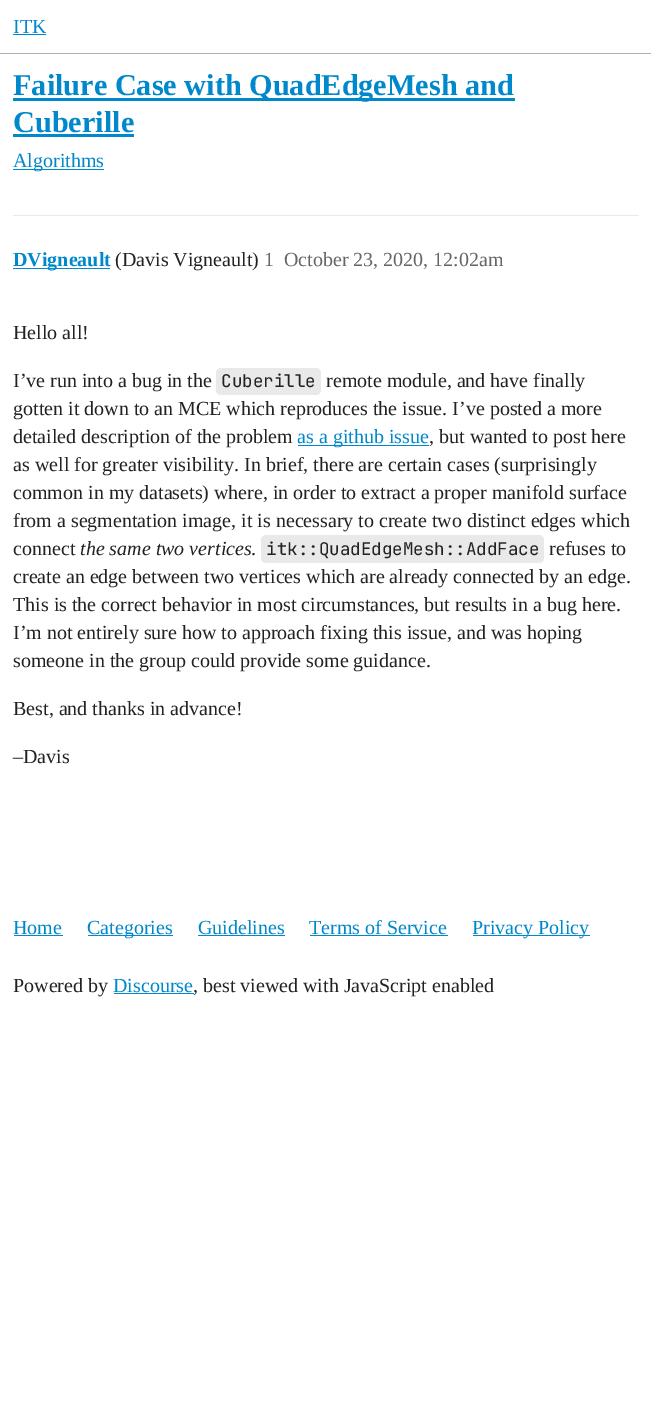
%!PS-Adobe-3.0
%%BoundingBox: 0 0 651 1426
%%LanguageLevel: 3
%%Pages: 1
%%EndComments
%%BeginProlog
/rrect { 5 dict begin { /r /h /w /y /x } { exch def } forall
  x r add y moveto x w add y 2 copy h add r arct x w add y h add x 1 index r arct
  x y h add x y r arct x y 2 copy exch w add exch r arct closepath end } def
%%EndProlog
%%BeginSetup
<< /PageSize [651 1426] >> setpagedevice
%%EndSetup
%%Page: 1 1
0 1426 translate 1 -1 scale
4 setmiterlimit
1 setgray
0 0 651 1426 rectfill
0.686 setgray
0 53 651 1 rectfill
0 0.533 0.8 setrgbcolor
13 34 33 1 rectfill
13 98 502 3 rectfill
13 134 121 3 rectfill
13 169 91 1 rectfill
0.914 setgray
13 215 626 1 rectfill
0 0.533 0.8 setrgbcolor
13 268 97 1 rectfill
0.914 setgray
216 368 105 27 5 rrect fill
0 0.533 0.8 setrgbcolor
298 445 131 1 rectfill
0.914 setgray
261 535 283 28 5 rrect fill
0 0.533 0.8 setrgbcolor
14 935 49 1 rectfill
88 935 85 1 rectfill
198 935 87 1 rectfill
310 935 138 1 rectfill
473 935 117 1 rectfill
114 993 80 1 rectfill
/LiberationSerif-Regular [20 0 0 -20 0 0] selectfont
13 33 moveto (ITK) show
/LiberationSerif-Bold [30.25 0 0 -30.25 0 0] selectfont
13 95 moveto (Failure Case with QuadEdgeMesh and) show
13 132 moveto (Cuberille) show
/LiberationSerif-Regular [20 0 0 -20 0 0] selectfont
13 167 moveto (Algorithms) show
/LiberationSerif-Bold [20 0 0 -20 0 0] selectfont
13 266 moveto (DVigneault) show
/LiberationSerif-Regular [20 0 0 -20 0 0] selectfont
0.133 setgray
115 266 moveto (\(Davis Vigneault\)) show
0.4 setgray
264 266 moveto (1) show
284 266 moveto (October 23, 2020, 12:02am) show
0.133 setgray
13 339 moveto (Hello all!) show
13 387 moveto (I’ve run into a bug in the) show
/JetBrainsMono-Regular [17.5 0 0 -17.5 0 0] selectfont
221 387 moveto (Cuberille) show
/LiberationSerif-Regular [20 0 0 -20 0 0] selectfont
326 387 moveto (remote module, and have finally) show
13 415 moveto (gotten it down to an MCE which reproduces the issue. I’ve posted a more) show
13 443 moveto (detailed description of the problem) show
0 0.533 0.8 setrgbcolor
297 443 moveto (as a github issue) show
0.133 setgray
429 443 moveto (, but wanted to post here) show
13 471 moveto (as well for greater visibility. In brief, there are certain cases \(surprisingly) show
13 499 moveto (common in my datasets\) where, in order to extract a proper manifold surface) show
13 527 moveto (from a segmentation image, it is necessary to create two distinct edges which) show
13 555 moveto (connect) show
/LiberationSerif-Italic [20 0 0 -20 0 0] selectfont
80 555 moveto (the same two vertices) show
/LiberationSerif-Regular [20 0 0 -20 0 0] selectfont
251 555 moveto (.) show
/JetBrainsMono-Regular [17.5 0 0 -17.5 0 0] selectfont
266 555 moveto (itk::QuadEdgeMesh::AddFace) show
/LiberationSerif-Regular [20 0 0 -20 0 0] selectfont
549 555 moveto (refuses to) show
13 583 moveto (create an edge between two vertices which are already connected by an edge.) show
gsave
13 299 626 492 rectclip
13 611 moveto (This is the correct behavior in most circumstances, but results in a bug here.) show
grestore
13 639 moveto (I’m not entirely sure how to approach fixing this issue, and was hoping) show
13 667 moveto (someone in the group could provide some guidance.) show
13 715 moveto (Best, and thanks in advance!) show
13 763 moveto (–Davis) show
0 0.533 0.8 setrgbcolor
13 934 moveto (Home) show
87 934 moveto (Categories) show
198 934 moveto (Guidelines) show
309 934 moveto (Terms of Service) show
472 934 moveto (Privacy Policy) show
0.133 setgray
13 992 moveto (Powered by) show
0 0.533 0.8 setrgbcolor
113 992 moveto (Discourse) show
0.133 setgray
193 992 moveto (, best viewed with JavaScript enabled) show
showpage
%%EOF
